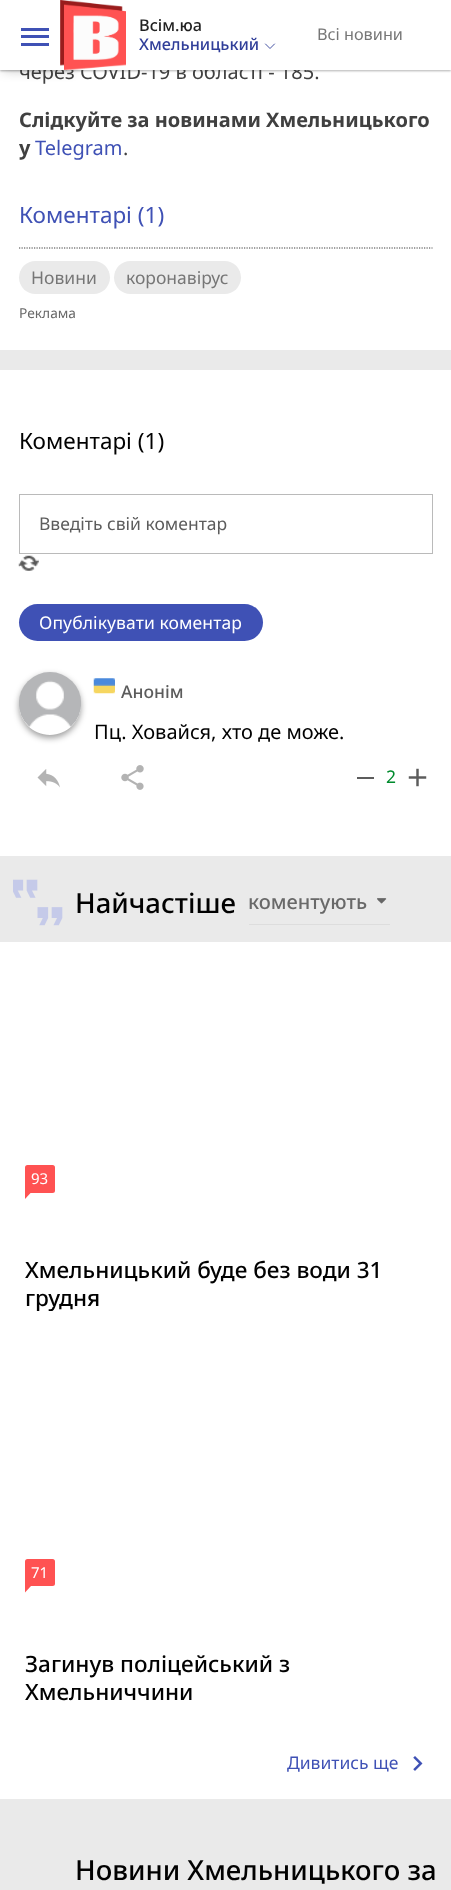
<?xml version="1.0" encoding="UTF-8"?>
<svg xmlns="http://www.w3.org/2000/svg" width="451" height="1890">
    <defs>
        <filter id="blur1" x="-50%" y="-200%" width="200%" height="500%"><feGaussianBlur stdDeviation="1"/></filter>
        <clipPath id="clip1"><path d="M 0 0 H 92 V 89 H 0 Z M 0 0 H 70 V 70 H 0 Z" clip-rule="evenodd"/></clipPath>
        <filter id="blur2" x="-50%" y="-200%" width="200%" height="500%"><feGaussianBlur stdDeviation="6"/></filter>
        <clipPath id="clip2"><path d="M 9 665 H 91 V 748 H 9 Z M 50 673 C 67 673 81 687 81 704 C 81 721 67 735 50 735 C 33 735 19 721 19 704 C 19 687 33 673 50 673 Z" clip-rule="evenodd"/></clipPath>
        <filter id="blur3" x="-50%" y="-200%" width="200%" height="500%"><feGaussianBlur stdDeviation="3"/></filter>
    </defs>
    <rect width="100%" height="100%" fill="#EAEAEA"/>
    <rect x="0" y="70" width="451" height="280" fill="#FFFFFF"/>
    <rect x="0" y="1" width="451" height="70" fill="#000000" fill-opacity="0.3" filter="url(#blur1)"/>
    <text x="19" y="79" font-family="Noto Sans" font-size="20" fill="#404040">через COVID-19 в області - 185.</text>
    <rect x="0" y="0" width="451" height="70" fill="#FFFFFF"/>
    <g clip-path="url(#clip1)">
        <rect x="3" y="0" width="70" height="70" fill="#000000" fill-opacity="0.25" filter="url(#blur2)"/>
    </g>
    <rect x="21" y="28" width="28" height="3" fill="#3F51B5"/>
    <rect x="21" y="35" width="28" height="3" fill="#3F51B5"/>
    <rect x="21" y="43" width="28" height="3" fill="#3F51B5"/>
    <image x="60" y="0" width="66" height="70" href="img_01.png"/>
    <text x="139" y="31" font-family="Noto Sans" font-size="16.25" font-weight="500" fill="#212121">Всім.юа</text>
    <text x="139" y="50" font-family="Noto Sans" font-size="16.25" font-weight="500" fill="#303E99">Хмельницький</text>
    <path d="M 274.5 44 L 270 48.5 L 265.5 44" fill="none" stroke="#303E99" stroke-width="0.9" stroke-linecap="round" stroke-linejoin="round"/>
    <text x="317" y="40" font-family="Noto Sans" font-size="16.25" fill="#767676">Всі новини</text>
    <text font-family="Noto Sans" font-size="20" font-weight="700" fill="#404040">
        <tspan x="19" y="127">Слідкуйте за новинами Хмельницького</tspan>
        <tspan x="19" y="155">у</tspan>
    </text>
    <text x="35" y="155" font-family="Noto Sans" font-size="20" fill="#3F51B5">Telegram</text>
    <text x="123" y="155" font-family="Noto Sans" font-size="20" fill="#404040">.</text>
    <text x="19" y="223" font-family="Noto Sans" font-size="22.5" fill="#3F51B5">Коментарі (1)</text>
    <path d="M 19 248 H 432.5" fill="none" stroke="#404040" stroke-width="1.2" stroke-dasharray="1.25 1.25"/>
    <rect x="19" y="261" width="91" height="33" rx="16.5" fill="#EAEAEA"/>
    <text x="31" y="284" font-family="Noto Sans" font-size="17.5" fill="#767676">Новини</text>
    <rect x="114" y="261" width="127" height="33" rx="16.5" fill="#EAEAEA"/>
    <text x="126" y="284" font-family="Noto Sans" font-size="17.5" fill="#767676">коронавірус</text>
    <text x="19" y="318" font-family="Noto Sans" font-size="13.75" fill="#696969">Реклама</text>
    <rect x="0" y="370" width="451" height="486" fill="#FFFFFF"/>
    <text x="19" y="449" font-family="Noto Sans" font-size="22.5" fill="#010101">Коментарі (1)</text>
    <rect x="19.5" y="494.5" width="413" height="59" fill="none" stroke="#BABABA"/>
    <text x="39" y="530" font-family="Noto Sans" font-size="17.5" fill="#5C5C5C">Введіть свій коментар</text>
    <image x="18" y="555" width="21" height="16" href="img_02.png"/>
    <rect x="19" y="604" width="244" height="37" rx="18.5" fill="#3F51B5"/>
    <text x="39" y="629" font-family="Noto Sans" font-size="17.5" letter-spacing="0.1" fill="#FFFFFF">Опублікувати коментар</text>
    <g clip-path="url(#clip2)">
        <rect x="19" y="675" width="62" height="63" rx="31" fill="#000000" fill-opacity="0.38" filter="url(#blur3)"/>
    </g>
    <image x="19" y="672" width="62" height="55" href="img_03.png"/>
    <image x="93" y="678" width="22" height="16" href="img_04.png"/>
    <text x="121" y="698" font-family="Noto Sans" font-size="17.5" font-weight="500" fill="#5C5C5C">Анонім</text>
    <text x="94" y="739" font-family="Noto Sans" font-size="20" fill="#010101">Пц. Ховайся, хто де може.</text>
    <image x="37" y="769" width="23" height="19" href="img_05.png"/>
    <image x="121" y="765" width="23" height="25" href="img_06.png"/>
    <rect x="357" y="777" width="17" height="2" fill="#5C5C5C"/>
    <text x="386" y="783" font-family="Noto Sans" font-size="17.5" fill="#008B2D">2</text>
    <image x="408" y="768" width="19" height="19" href="img_07.png"/>
    <image x="13" y="879" width="50" height="47" href="img_08.png"/>
    <text x="75" y="913" font-family="Noto Sans" font-size="27.5" font-weight="500" fill="#010101">Найчастіше</text>
    <image x="377" y="898" width="10" height="6" href="img_09.png"/>
    <rect x="249" y="924" width="141" height="1" fill="#DDDDDD"/>
    <text x="248" y="909" font-family="Noto Sans" font-size="20" font-weight="500" fill="#696969">коментують</text>
    <rect x="0" y="942" width="451" height="369" fill="#FFFFFF"/>
    <rect x="25" y="1165" width="30" height="28" rx="2.5" fill="#FF5252"/>
    <text x="31" y="1184" font-family="Noto Sans" font-size="15" fill="#FFFFFF">93</text>
    <path d="M 25 1199 V 1186 L 31 1192.5 Z" fill="#FF5252"/>
    <text font-family="Noto Sans" font-size="22.5" font-weight="500" fill="#010101">
        <tspan x="25" y="1278">Хмельницький буде без води 31</tspan>
        <tspan x="25" y="1306">грудня</tspan>
    </text>
    <rect x="0" y="1311" width="451" height="419" fill="#FFFFFF"/>
    <rect x="25" y="1559" width="30" height="27" rx="2.5" fill="#FF5252"/>
    <text x="31" y="1578" font-family="Noto Sans" font-size="15" fill="#FFFFFF">71</text>
    <path d="M 25 1592.5 V 1580 L 31 1586 Z" fill="#FF5252"/>
    <text font-family="Noto Sans" font-size="22.5" font-weight="500" fill="#010101">
        <tspan x="25" y="1672">Загинув поліцейський з</tspan>
        <tspan x="25" y="1700">Хмельниччини</tspan>
    </text>
    <rect x="0" y="1730" width="451" height="69" fill="#FFFFFF"/>
    <text x="287" y="1769" font-family="Noto Sans" font-size="17.5" fill="#3F51B5">Дивитись ще</text>
    <image x="413" y="1756" width="10" height="15" href="img_10.png"/>
    <text x="75" y="1880" font-family="Noto Sans" font-size="27.5" font-weight="500" fill="#010101">Новини Хмельницького за</text>
</svg>
